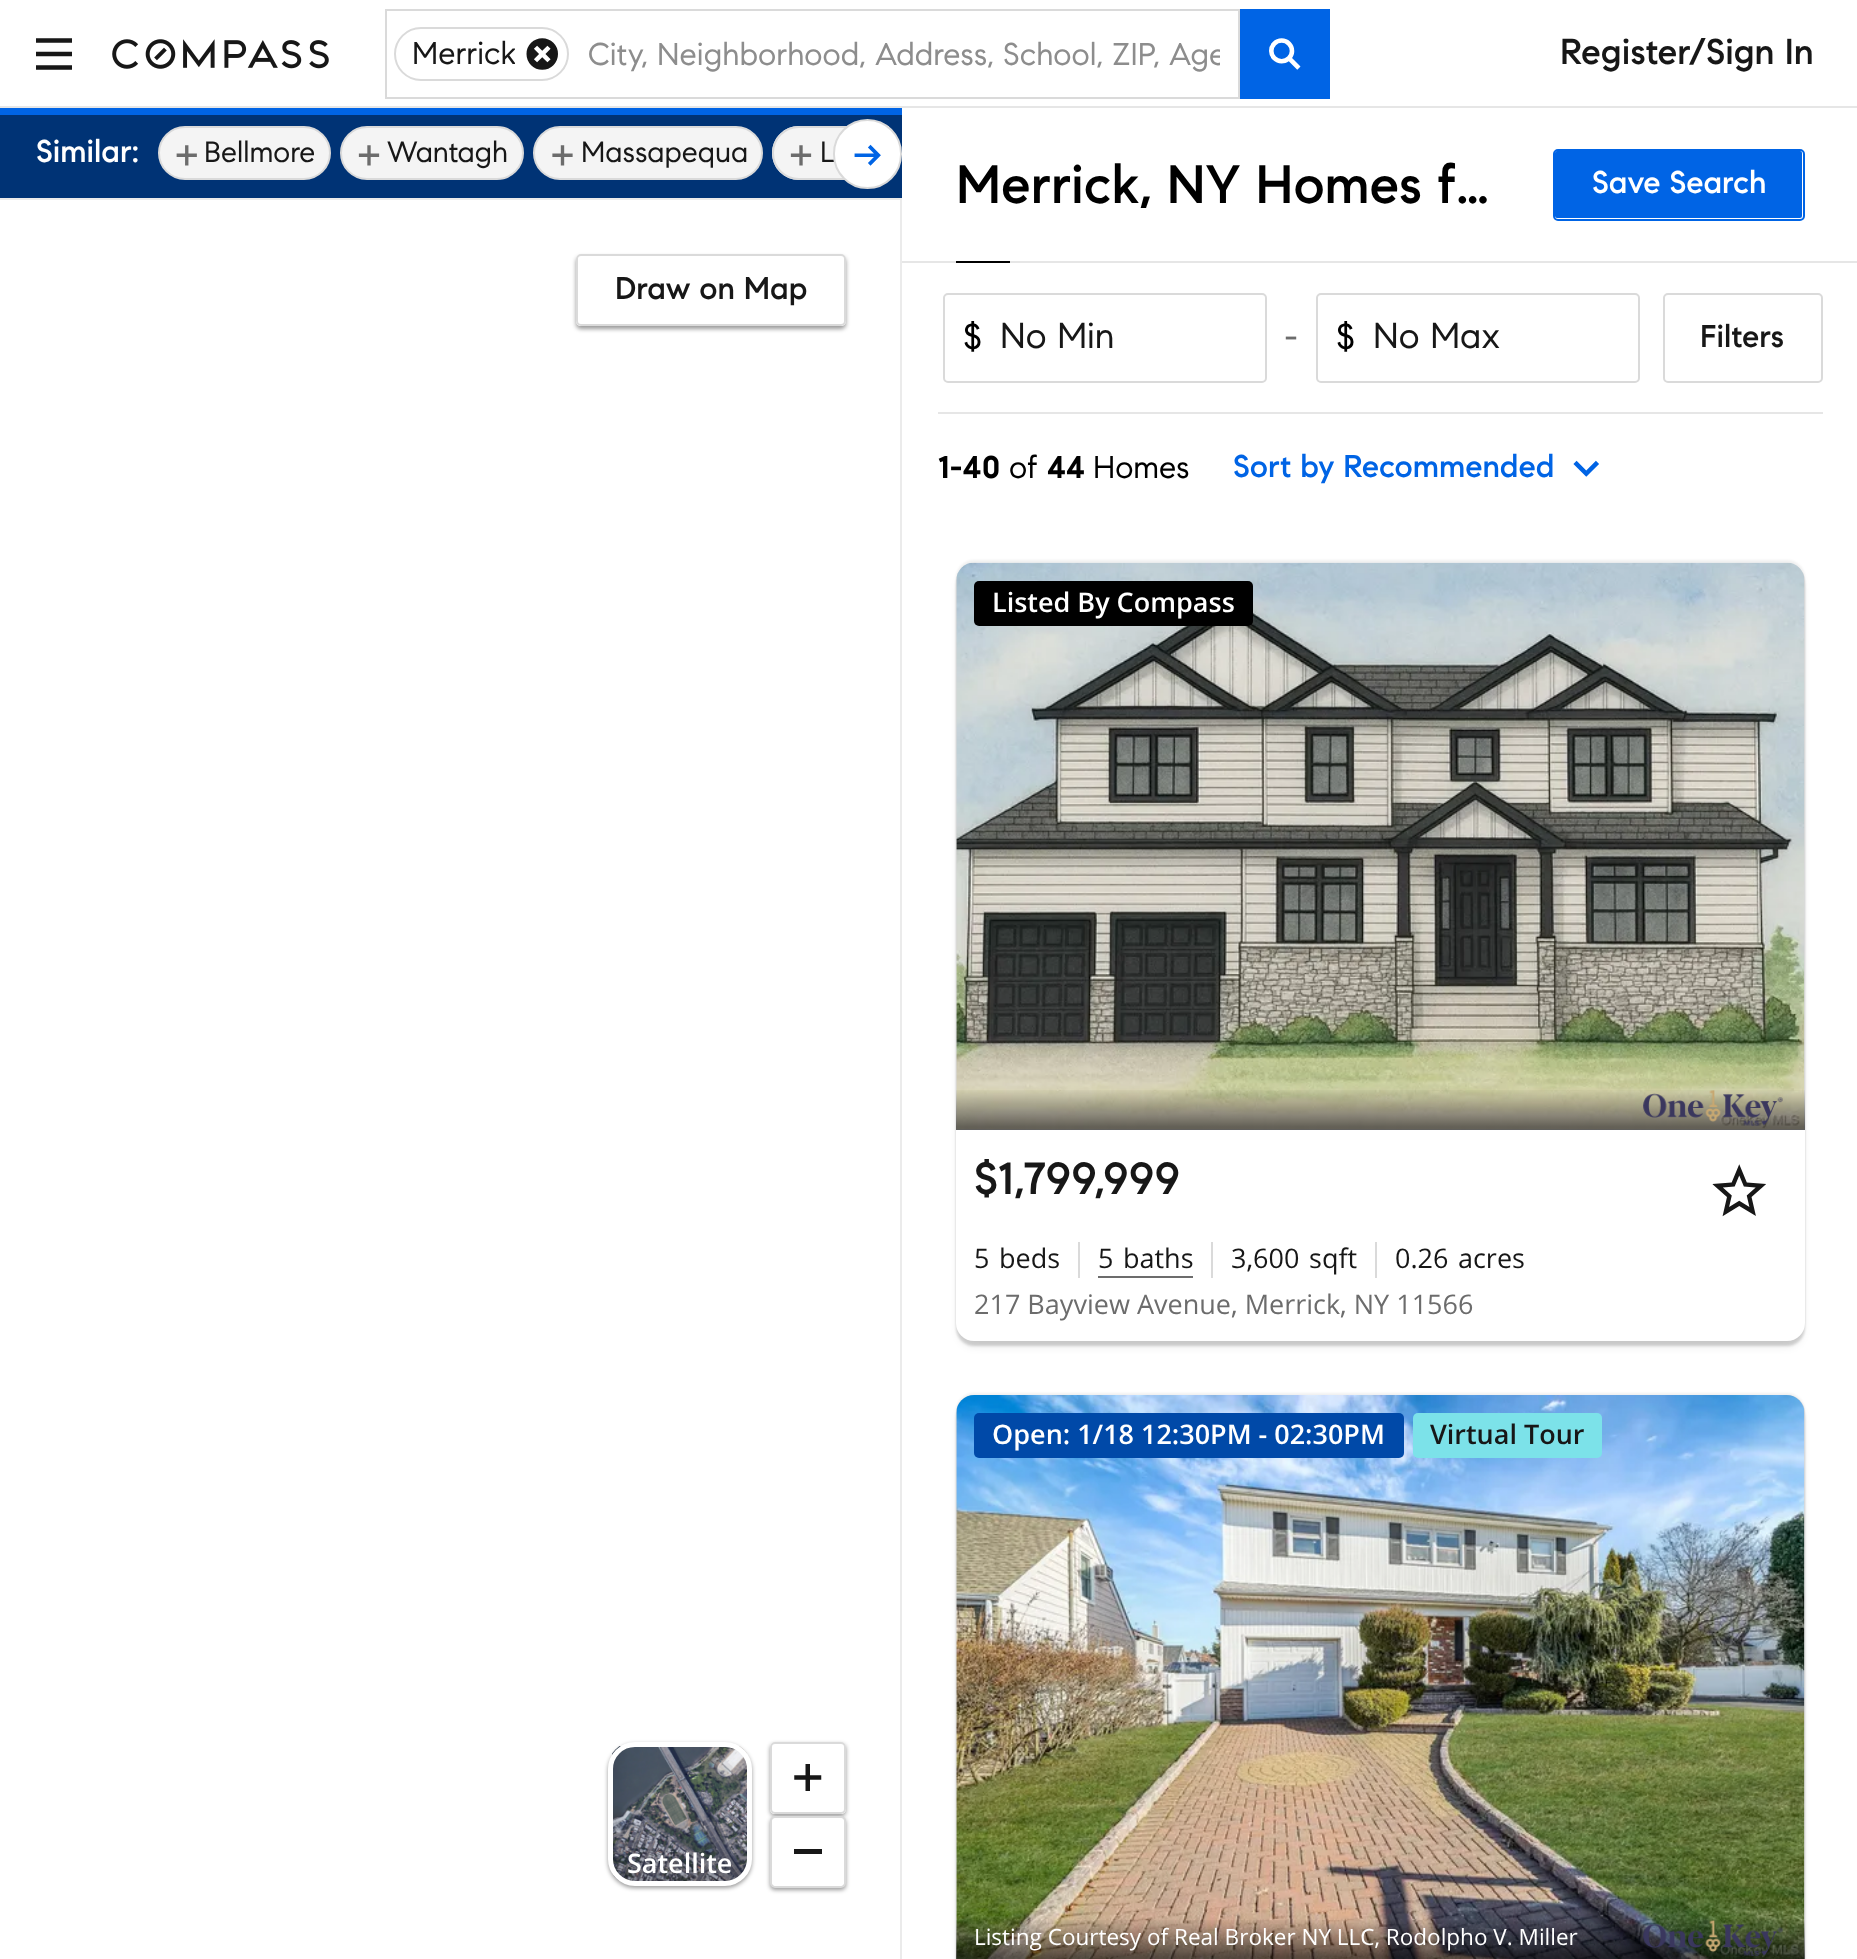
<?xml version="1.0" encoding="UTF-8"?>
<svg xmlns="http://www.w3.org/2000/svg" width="1857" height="1959">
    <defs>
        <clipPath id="clip1"><rect x="412" y="34" width="103" height="40"/></clipPath>
        <clipPath id="clip2"><rect x="587" y="36" width="633" height="38"/></clipPath>
        <clipPath id="clip3"><rect x="36" y="110" width="853" height="88"/></clipPath>
        <clipPath id="clip4"><path d="M 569 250 H 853 V 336 H 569 Z M 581 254 H 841 C 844 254 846 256 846 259 V 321 C 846 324 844 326 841 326 H 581 C 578 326 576 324 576 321 V 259 C 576 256 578 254 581 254 Z" clip-rule="evenodd"/></clipPath>
        <filter id="blur1" x="-50%" y="-200%" width="200%" height="500%"><feGaussianBlur stdDeviation="2"/></filter>
        <clipPath id="clip5"><path d="M 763 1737 H 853 V 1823 H 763 Z M 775 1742 H 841 C 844 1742 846 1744 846 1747 V 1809 C 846 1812 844 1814 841 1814 H 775 C 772 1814 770 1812 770 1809 V 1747 C 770 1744 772 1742 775 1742 Z" clip-rule="evenodd"/></clipPath>
        <filter id="blur2" x="-50%" y="-200%" width="200%" height="500%"><feGaussianBlur stdDeviation="1"/></filter>
        <filter id="blur3" x="-50%" y="-200%" width="200%" height="500%"><feGaussianBlur stdDeviation="4.5"/></filter>
        <linearGradient id="g1" gradientUnits="userSpaceOnUse" x1="1380" y1="1085" x2="1380" y2="1130"><stop offset="0.07" stop-color="#000000" stop-opacity="0"/><stop offset="0.93" stop-color="#000000" stop-opacity="0.57"/></linearGradient>
        <linearGradient id="g2" gradientUnits="userSpaceOnUse" x1="1380" y1="1915" x2="1380" y2="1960"><stop offset="0.07" stop-color="#000000" stop-opacity="0"/><stop offset="0.93" stop-color="#000000" stop-opacity="0.57"/></linearGradient>
    </defs>
    <rect width="100%" height="100%" fill="#FFFFFF"/>
    <rect x="0" y="106" width="1857" height="2" fill="#E6E6E6"/>
    <image x="36" y="38" width="36" height="32" href="img_01.png"/>
    <image x="112" y="39" width="217" height="30" href="img_02.png"/>
    <rect x="386" y="10" width="853" height="88" fill="none" stroke="#DADADA" stroke-width="2"/>
    <rect x="395" y="28" width="173" height="52" rx="26" fill="none" stroke="#DADADA" stroke-width="2"/>
    <g clip-path="url(#clip1)">
        <text x="412" y="64" font-family="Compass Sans" font-size="31.5" fill="#171717">Merrick</text>
    </g>
    <image x="526" y="38" width="32" height="32" href="img_03.png"/>
    <g clip-path="url(#clip2)">
        <text x="588" y="65" font-family="Compass Sans" font-size="31.5" fill="#8D8D8D">City, Neighborhood, Address, School, ZIP, Age</text>
    </g>
    <rect x="1240" y="9" width="90" height="90" fill="#0064E5"/>
    <image x="1269" y="38" width="32" height="32" href="img_04.png"/>
    <text x="1560" y="64" font-family="Compass Sans" font-size="36" font-weight="500" fill="#171717">Register/Sign In</text>
    <rect x="0" y="108" width="902" height="7" fill="#0064E5"/>
    <rect x="0" y="115" width="902" height="83" fill="#003375"/>
    <text x="36" y="162" font-family="Compass Sans" font-size="31.5" font-weight="500" fill="#FFFFFF">Similar:</text>
    <rect x="159" y="127" width="171" height="52" rx="26" fill="#F4F4F4" stroke="#DADADA" stroke-width="2"/>
    <image x="176" y="145" width="21" height="21" href="img_05.png"/>
    <text x="204" y="162" font-family="Compass Sans" font-size="29.25" fill="#171717">Bellmore</text>
    <rect x="341" y="127" width="182" height="52" rx="26" fill="#F4F4F4" stroke="#DADADA" stroke-width="2"/>
    <image x="358" y="145" width="22" height="21" href="img_06.png"/>
    <text x="387" y="162" font-family="Compass Sans" font-size="29.25" fill="#171717">Wantagh</text>
    <rect x="534" y="127" width="228" height="52" rx="26" fill="#F4F4F4" stroke="#DADADA" stroke-width="2"/>
    <image x="552" y="145" width="21" height="21" href="img_07.png"/>
    <text x="581" y="162" font-family="Compass Sans" font-size="29.25" fill="#171717">Massapequa</text>
    <path d="M 799 126 H 889 V 180 H 799 C 784 180 772 168 772 153 C 772 138 784 126 799 126 Z" fill="#F4F4F4"/>
    <g clip-path="url(#clip3)">
        <rect x="773" y="127" width="189" height="52" rx="26" fill="none" stroke="#DADADA" stroke-width="2"/>
    </g>
    <image x="790" y="145" width="22" height="21" href="img_06.png"/>
    <text x="820" y="162" font-family="Compass Sans" font-size="29.25" fill="#171717">L</text>
    <rect x="834" y="120" width="67" height="68" rx="33.5" fill="#FFFFFF" stroke="#DADADA" stroke-width="2"/>
    <image x="854" y="144" width="27" height="22" href="img_08.png"/>
    <path d="M 0 198 H 902 L 900 200 H 0 Z" fill="#EBEBEB"/>
    <path d="M 902 198 V 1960 H 900 V 200 Z" fill="#000000" fill-opacity="0.08"/>
    <g clip-path="url(#clip4)">
        <rect x="576" y="257" width="270" height="72" rx="5" fill="#000000" fill-opacity="0.4" filter="url(#blur1)"/>
    </g>
    <rect x="577" y="255" width="268" height="70" rx="4" fill="none" stroke="#DADADA" stroke-width="2"/>
    <text x="615" y="299" font-family="Compass Sans" font-size="31.5" font-weight="500" fill="#171717">Draw on Map</text>
    <rect x="608" y="1744" width="144" height="144" rx="27" fill="#000000" fill-opacity="0.4" filter="url(#blur1)"/>
    <image x="612" y="1746" width="135" height="135" href="img_09.png"/>
    <rect x="610.5" y="1744.5" width="139" height="139" rx="24.5" fill="none" stroke="#FFFFFF" stroke-width="5"/>
    <text x="627" y="1873" font-family="Open Sans" font-size="27" font-weight="600" fill="#FFFFFF">Satellite</text>
    <g clip-path="url(#clip5)">
        <rect x="770" y="1744" width="76" height="72" rx="5" fill="#000000" fill-opacity="0.4" filter="url(#blur1)"/>
    </g>
    <rect x="771" y="1743" width="74" height="70" rx="4" fill="none" stroke="#DADADA" stroke-width="2"/>
    <image x="794" y="1764" width="28" height="27" href="img_10.png"/>
    <rect x="770" y="1818" width="76" height="72" rx="5" fill="#000000" fill-opacity="0.4" filter="url(#blur1)"/>
    <rect x="772" y="1818" width="72" height="68" rx="2" fill="#FFFFFF"/>
    <rect x="771" y="1817" width="74" height="70" rx="4" fill="none" stroke="#DADADA" stroke-width="2"/>
    <rect x="794" y="1849" width="28" height="5" fill="#171717"/>
    <rect x="902" y="261" width="955" height="2" fill="#E6E6E6"/>
    <text x="956" y="203" font-family="Compass Sans" font-size="54" font-weight="500" fill="#000000">Merrick, NY Homes f…</text>
    <rect x="1555" y="151" width="247" height="67" rx="2" fill="#0064E5"/>
    <rect x="1554" y="150" width="250" height="70" rx="4" fill="none" stroke="#0064E5" stroke-width="2"/>
    <text x="1592" y="193" font-family="Compass Sans" font-size="31.5" font-weight="500" fill="#FFFFFF">Save Search</text>
    <rect x="956" y="261" width="54" height="2" fill="#000000"/>
    <rect x="944" y="294" width="322" height="88" rx="4" fill="none" stroke="#DADADA" stroke-width="2"/>
    <text x="963" y="349" font-family="Compass Sans" font-size="36" fill="#000000">$</text>
    <text x="1000" y="348" font-family="Compass Sans" font-size="36" fill="#171717">No Min</text>
    <text x="1284" y="349" font-family="Compass Sans" font-size="36" fill="#6C6C6C">-</text>
    <rect x="1317" y="294" width="322" height="88" rx="4" fill="none" stroke="#DADADA" stroke-width="2"/>
    <text x="1336" y="349" font-family="Compass Sans" font-size="36" fill="#000000">$</text>
    <text x="1373" y="348" font-family="Compass Sans" font-size="36" fill="#171717">No Max</text>
    <rect x="1664" y="294" width="158" height="88" rx="4" fill="none" stroke="#DADADA" stroke-width="2"/>
    <text x="1700" y="347" font-family="Compass Sans" font-size="31.5" font-weight="500" fill="#171717">Filters</text>
    <rect x="938" y="412" width="885" height="2" fill="#E6E6E6"/>
    <text x="938" y="478" font-family="Compass Sans" font-size="31.5" font-weight="700" fill="#000000">1-40</text>
    <text x="1009" y="478" font-family="Compass Sans" font-size="31.5" fill="#000000">of</text>
    <text x="1047" y="478" font-family="Compass Sans" font-size="31.5" font-weight="700" fill="#000000">44</text>
    <text x="1093" y="478" font-family="Compass Sans" font-size="31.5" fill="#000000">Homes</text>
    <text x="1233" y="477" font-family="Compass Sans" font-size="31.5" font-weight="500" fill="#0064E5">Sort by Recommended</text>
    <image x="1573" y="460" width="26" height="17" href="img_11.png"/>
    <rect x="956" y="560" width="849" height="779" rx="18" fill="#000000" fill-opacity="0.06" filter="url(#blur2)"/>
    <rect x="956" y="567" width="849" height="779" rx="18" fill="#000000" fill-opacity="0.14" filter="url(#blur2)"/>
    <rect x="959" y="572" width="843" height="774" rx="16" fill="#000000" fill-opacity="0.1" filter="url(#blur3)"/>
    <rect x="956" y="563" width="849" height="778" rx="18" fill="#FFFFFF"/>
    <path d="M 974 563 H 1787 C 1797 563 1805 571 1805 581 V 1130 H 956 V 581 C 956 571 964 563 974 563 Z" fill="#DADADA"/>
    <image x="956" y="562" width="849" height="568" href="img_12.png"/>
    <rect x="974" y="581" width="279" height="45" rx="5" fill="#000000"/>
    <text x="992" y="612" font-family="Open Sans" font-size="27" font-weight="600" fill="#FFFFFF">Listed By Compass</text>
    <rect x="956" y="1090" width="849" height="40" fill="url(#g1)"/>
    <image x="1643" y="1090" width="140" height="36" href="img_13.png"/>
    <text x="974" y="1194" font-family="Compass Sans" font-size="45" font-weight="500" fill="#171717">$1,799,999</text>
    <image x="1712" y="1164" width="54" height="53" href="img_14.png"/>
    <text x="974" y="1268" font-family="Open Sans" font-size="27" fill="#171717">5</text>
    <text x="999" y="1268" font-family="Open Sans" font-size="27" fill="#171717">beds</text>
    <rect x="1078" y="1242" width="2" height="36" fill="#DADADA"/>
    <rect x="1098" y="1276" width="95" height="2" fill="#6C6C6C"/>
    <text x="1098" y="1268" font-family="Open Sans" font-size="27" fill="#171717">5</text>
    <text x="1123" y="1268" font-family="Open Sans" font-size="27" fill="#171717">baths</text>
    <rect x="1211" y="1242" width="2" height="36" fill="#DADADA"/>
    <text x="1231" y="1268" font-family="Open Sans" font-size="27" fill="#171717">3,600</text>
    <text x="1309" y="1268" font-family="Open Sans" font-size="27" fill="#171717">sqft</text>
    <rect x="1375" y="1242" width="2" height="36" fill="#DADADA"/>
    <text x="1395" y="1268" font-family="Open Sans" font-size="27" fill="#171717">0.26</text>
    <text x="1458" y="1268" font-family="Open Sans" font-size="27" fill="#171717">acres</text>
    <text x="974" y="1314" font-family="Open Sans" font-size="27" fill="#6C6C6C">217 Bayview Avenue, Merrick, NY 11566</text>
    <rect x="956" y="1393" width="849" height="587" rx="18" fill="#000000" fill-opacity="0.06" filter="url(#blur2)"/>
    <rect x="956" y="1400" width="849" height="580" rx="18" fill="#000000" fill-opacity="0.14" filter="url(#blur2)"/>
    <rect x="959" y="1404" width="843" height="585" rx="16" fill="#000000" fill-opacity="0.1" filter="url(#blur3)"/>
    <path d="M 974 1395 H 1787 C 1797 1395 1805 1403 1805 1413 V 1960 H 956 V 1413 C 956 1403 964 1395 974 1395 Z" fill="#DADADA"/>
    <image x="956" y="1395" width="849" height="564" href="img_15.png"/>
    <rect x="974" y="1413" width="430" height="45" rx="5" fill="#0049A8"/>
    <text x="992" y="1444" font-family="Open Sans" font-size="27" font-weight="600" fill="#FFFFFF">Open: 1/18 12:30PM - 02:30PM</text>
    <rect x="1413" y="1413" width="189" height="45" rx="5" fill="#7CE2E9"/>
    <text x="1430" y="1444" font-family="Open Sans" font-size="27" font-weight="600" fill="#171717">Virtual Tour</text>
    <rect x="956" y="1920" width="849" height="39" fill="url(#g2)"/>
    <text x="974" y="1945" font-family="Open Sans" font-size="22.5" fill="#FFFFFF">Listing Courtesy of Real Broker NY LLC, Rodolpho V. Miller</text>
    <image x="1643" y="1920" width="140" height="36" href="img_16.png"/>
</svg>
